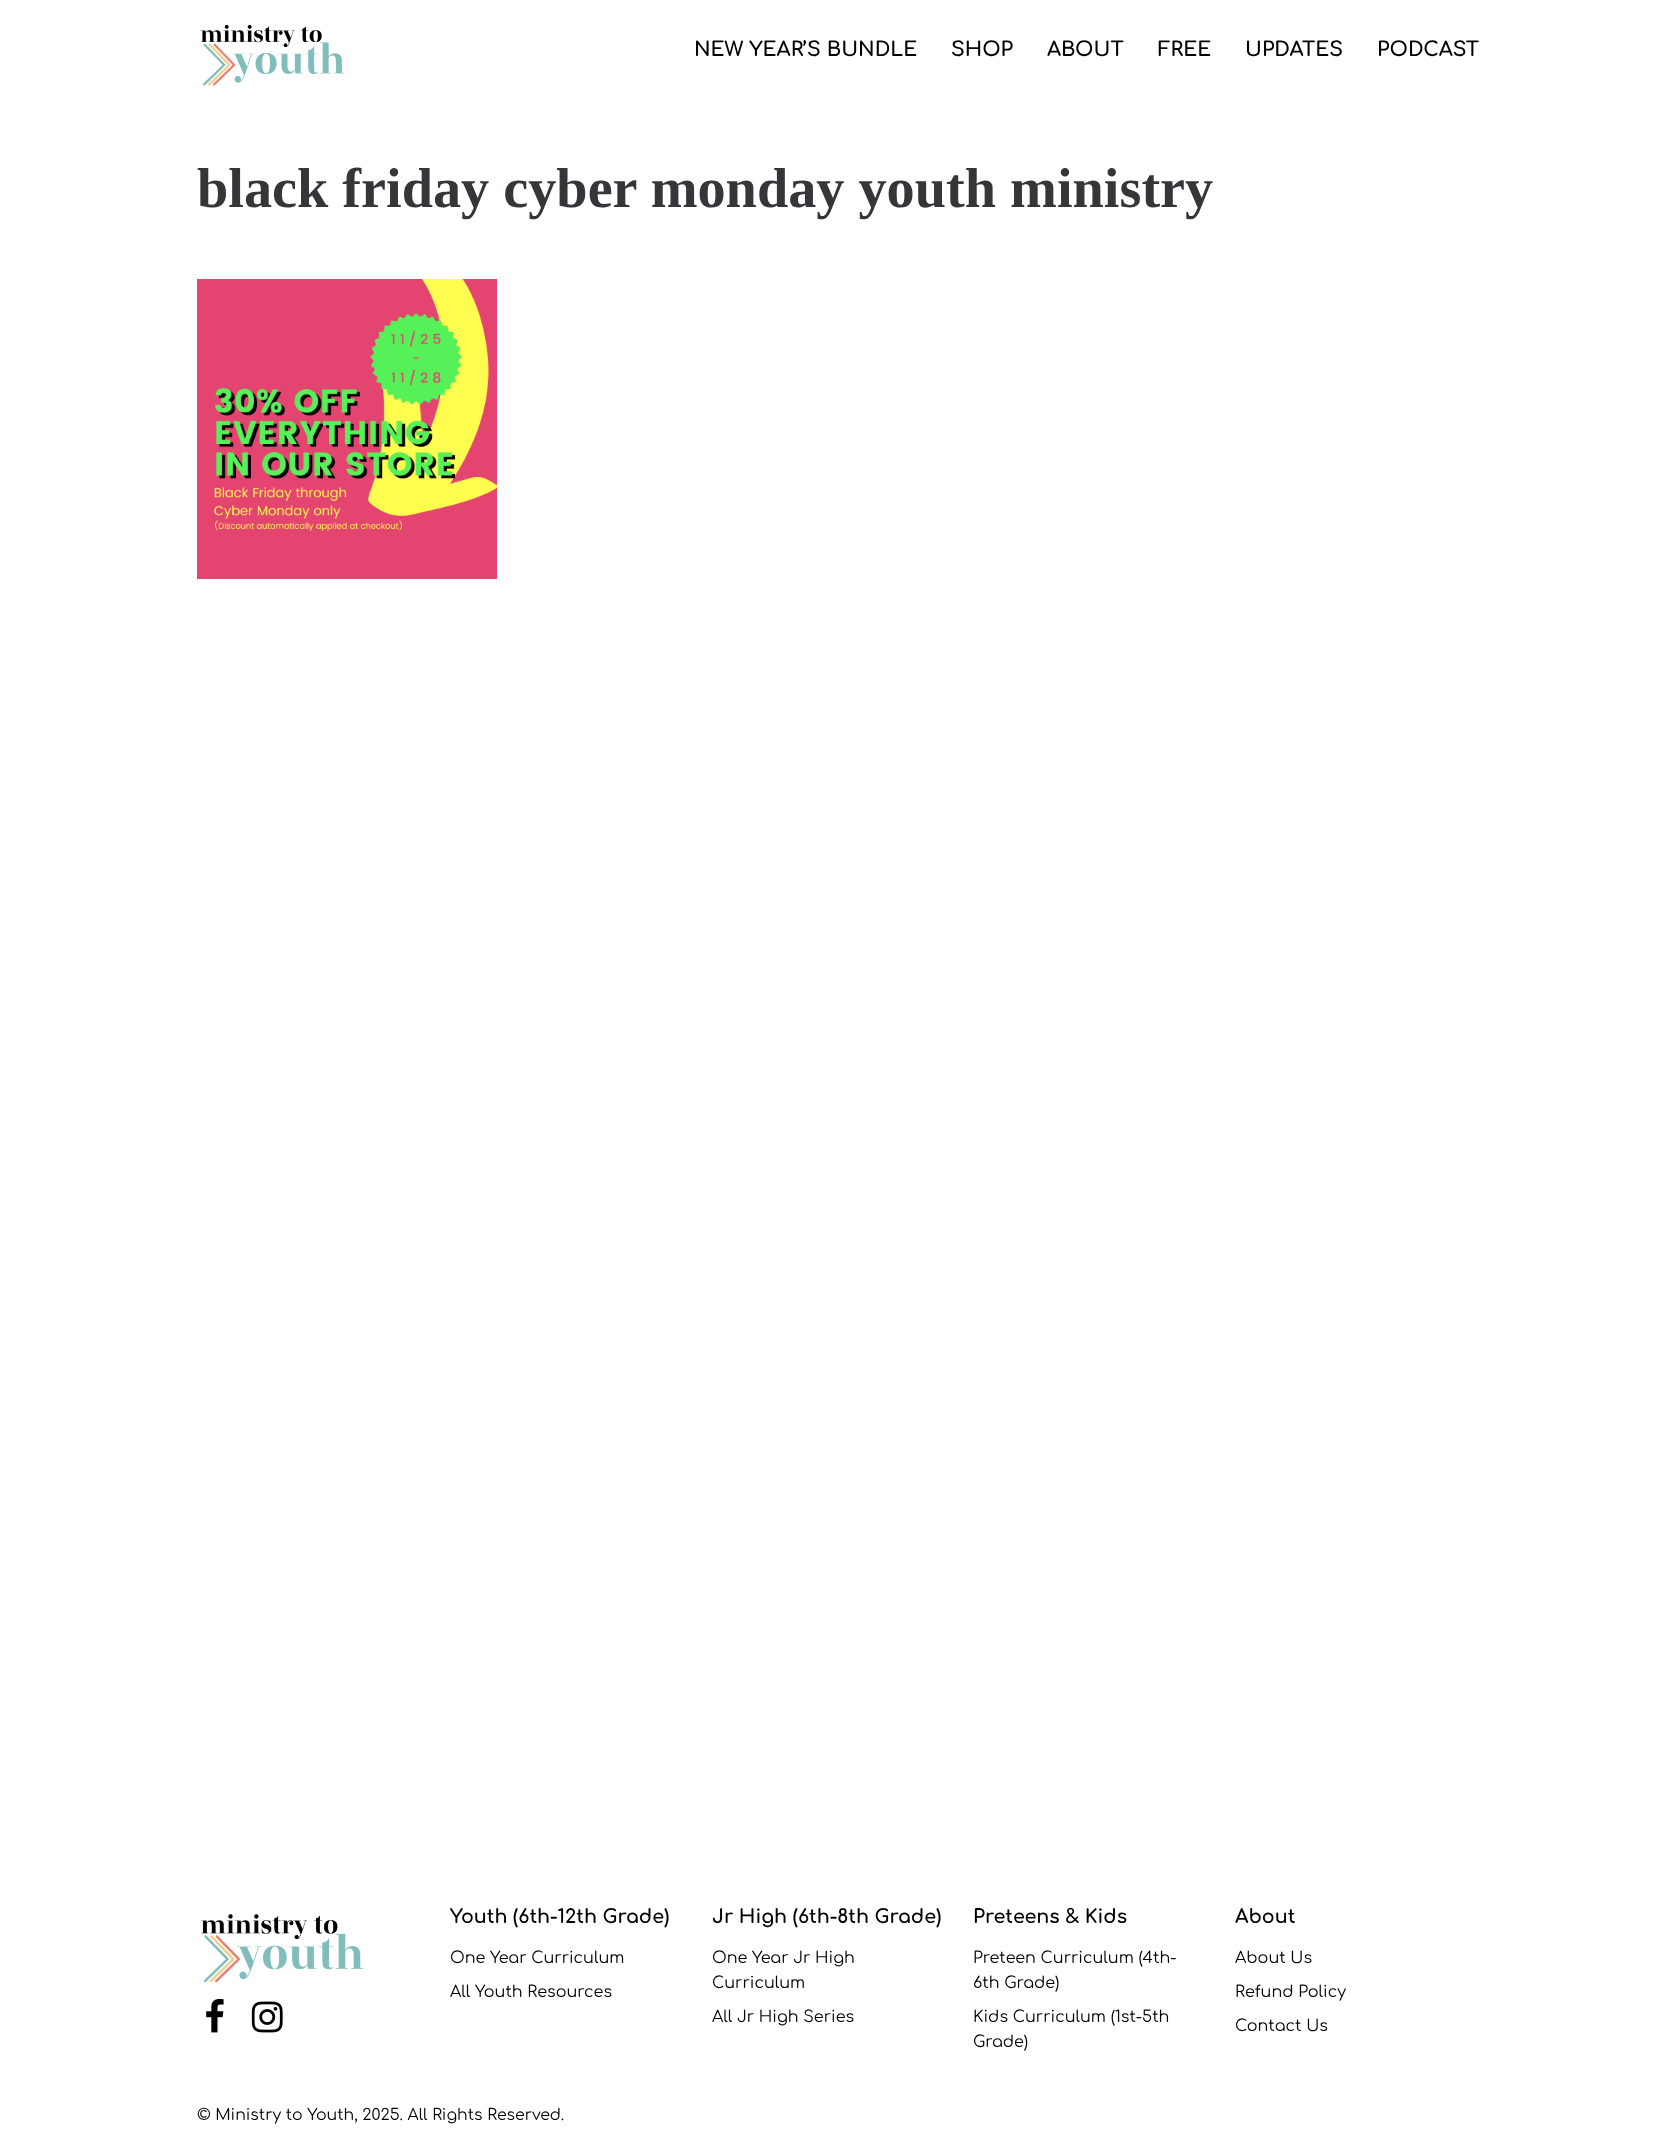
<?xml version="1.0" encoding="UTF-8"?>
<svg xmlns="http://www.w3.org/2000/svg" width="1676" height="2147">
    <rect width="100%" height="100%" fill="#FFFFFF"/>
    <image x="200" y="24" width="145" height="62" href="img_01.png"/>
    <text x="694" y="56" font-family="Comfortaa" font-size="20" font-weight="700" fill="#000000">NEW YEAR’S BUNDLE</text>
    <text x="951" y="56" font-family="Comfortaa" font-size="20" font-weight="700" fill="#000000">SHOP</text>
    <text x="1047" y="56" font-family="Comfortaa" font-size="20" font-weight="700" fill="#000000">ABOUT</text>
    <text x="1158" y="56" font-family="Comfortaa" font-size="20" font-weight="700" fill="#000000">FREE</text>
    <text x="1245" y="56" font-family="Comfortaa" font-size="20" font-weight="700" fill="#000000">UPDATES</text>
    <text x="1377" y="56" font-family="Comfortaa" font-size="20" font-weight="700" fill="#000000">PODCAST</text>
    <text x="197" y="207" font-family="Liberation Serif" font-size="56.25" font-weight="700" fill="#343639">black friday cyber monday youth ministry</text>
    <image x="197" y="279" width="300" height="300" href="img_02.png"/>
    <image x="201" y="1914" width="163" height="69" href="img_03.png"/>
    <image x="206" y="1999" width="18" height="34" href="img_04.png"/>
    <image x="251" y="2001" width="32" height="32" href="img_05.png"/>
    <text x="450" y="1923" font-family="Comfortaa" font-size="19.1" font-weight="700" fill="#000000">Youth (6th-12th Grade)</text>
    <text x="450" y="1963" font-family="Comfortaa" font-size="16" fill="#000000">One Year Curriculum</text>
    <text x="450" y="1997" font-family="Comfortaa" font-size="16" fill="#000000">All Youth Resources</text>
    <text x="712" y="1923" font-family="Comfortaa" font-size="19.1" font-weight="700" fill="#000000">Jr High (6th-8th Grade)</text>
    <text font-family="Comfortaa" font-size="16" fill="#000000">
        <tspan x="712" y="1963">One Year Jr High</tspan>
        <tspan x="712" y="1988">Curriculum</tspan>
    </text>
    <text x="712" y="2022" font-family="Comfortaa" font-size="16" fill="#000000">All Jr High Series</text>
    <text x="973" y="1923" font-family="Comfortaa" font-size="19.1" font-weight="700" fill="#000000">Preteens &amp; Kids</text>
    <text font-family="Comfortaa" font-size="16" fill="#000000">
        <tspan x="973" y="1963">Preteen Curriculum (4th-</tspan>
        <tspan x="973" y="1988">6th Grade)</tspan>
    </text>
    <text font-family="Comfortaa" font-size="16" fill="#000000">
        <tspan x="973" y="2022">Kids Curriculum (1st-5th</tspan>
        <tspan x="973" y="2047">Grade)</tspan>
    </text>
    <text x="1235" y="1923" font-family="Comfortaa" font-size="19.1" font-weight="700" fill="#000000">About</text>
    <text x="1235" y="1963" font-family="Comfortaa" font-size="16" fill="#000000">About Us</text>
    <text x="1235" y="1997" font-family="Comfortaa" font-size="16" fill="#000000">Refund Policy</text>
    <text x="1235" y="2031" font-family="Comfortaa" font-size="16" fill="#000000">Contact Us</text>
    <text x="197" y="2120" font-family="Comfortaa" font-size="15.75" fill="#000000">© Ministry to Youth, 2025. All Rights Reserved.</text>
</svg>
